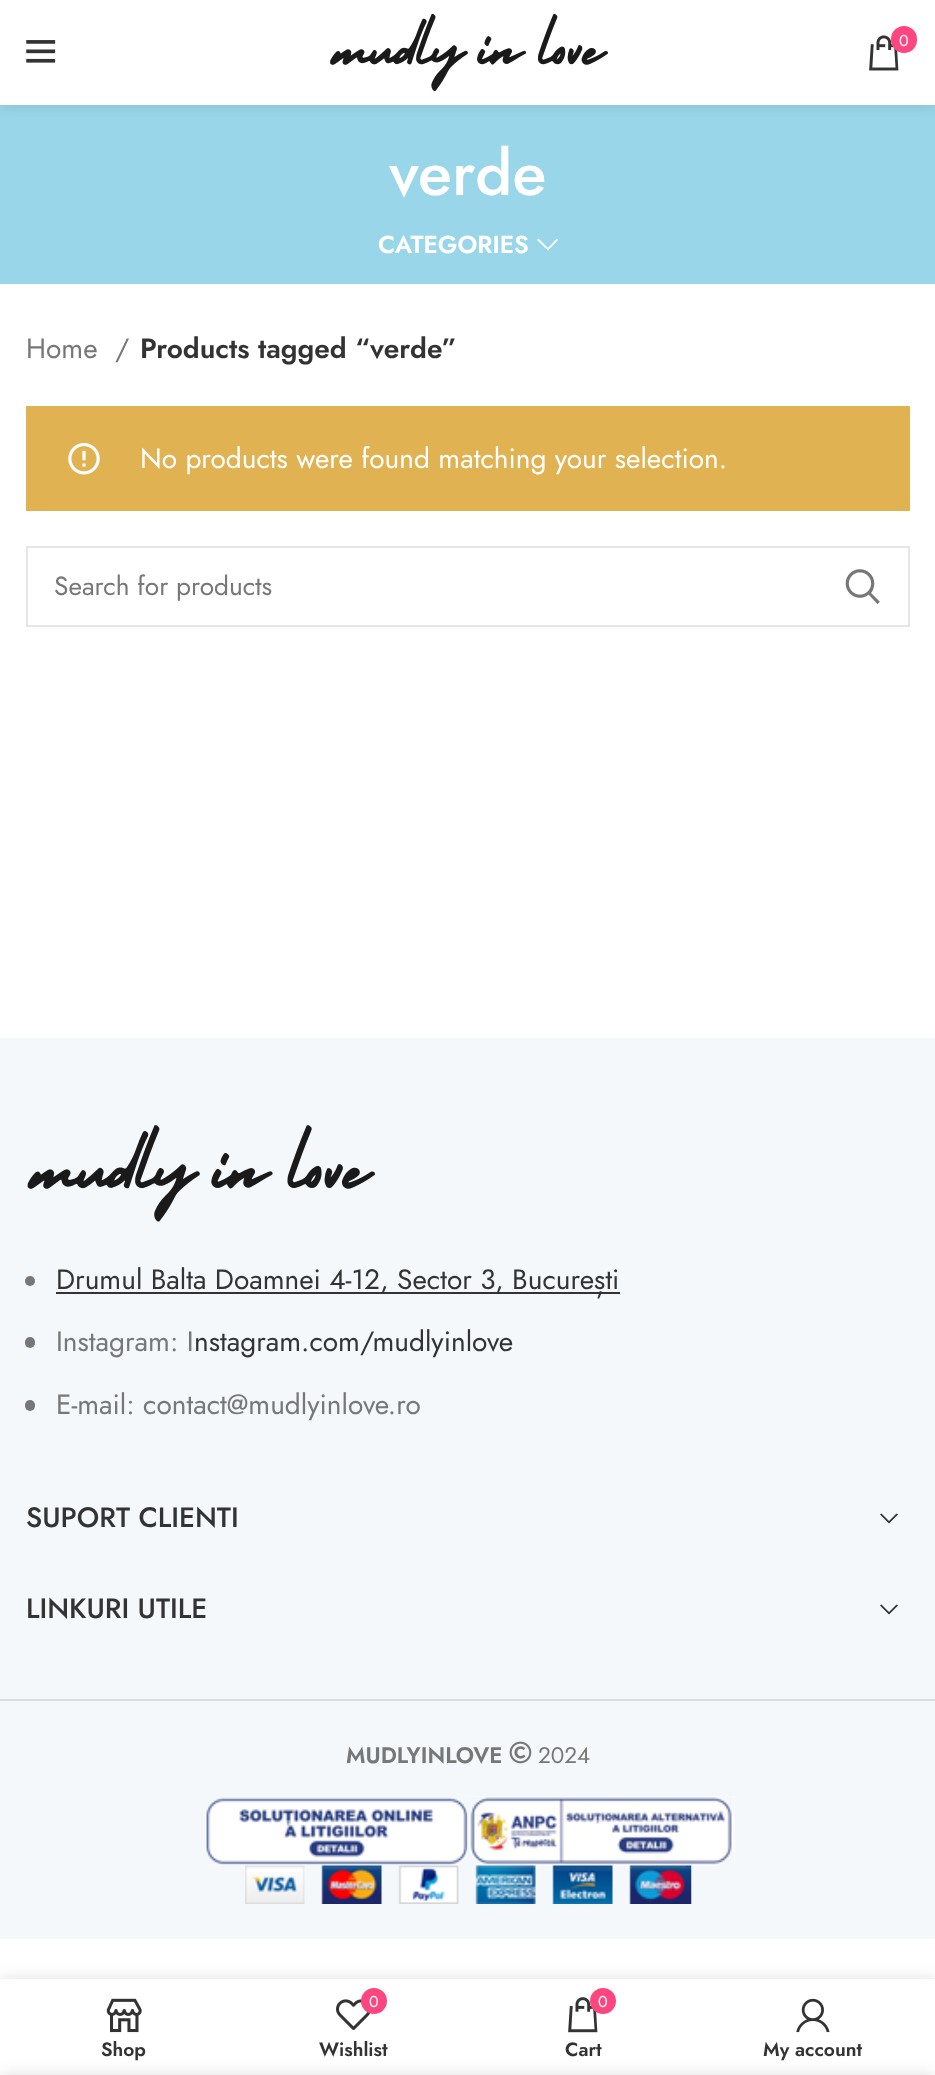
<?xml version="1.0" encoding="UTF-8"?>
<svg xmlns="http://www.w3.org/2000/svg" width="935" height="2075">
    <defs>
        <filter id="blur1" x="-50%" y="-200%" width="200%" height="500%"><feGaussianBlur stdDeviation="7"/></filter>
        <filter id="blur2" x="-50%" y="-200%" width="200%" height="500%"><feGaussianBlur stdDeviation="8"/></filter>
    </defs>
    <rect width="100%" height="100%" fill="#FFFFFF"/>
    <rect x="0" y="105" width="935" height="179" fill="#99D6E9"/>
    <rect x="0" y="2" width="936" height="105" fill="#000000" fill-opacity="0.1" filter="url(#blur1)"/>
    <rect x="0" y="0" width="935" height="105" fill="#FFFFFF"/>
    <image x="26" y="40" width="30" height="23" href="img_01.png"/>
    <image x="330" y="14" width="278" height="77" href="img_02.png"/>
    <image x="869" y="35" width="30" height="36" href="img_03.png"/>
    <rect x="891" y="26" width="26" height="27" rx="13" fill="#FD4680"/>
    <text x="899" y="46" font-family="Jost" font-size="16" fill="#FFFFFF">0</text>
    <text x="389" y="195" font-family="Jost" font-size="63" font-weight="500" fill="#FFFFFF">verde</text>
    <text x="378" y="253" font-family="Jost" font-size="24.5" font-weight="600" fill="#FFFFFF">CATEGORIES</text>
    <path d="M 557 238.5 L 558 240 L 548 250.5 L 537 240 L 538.5 238.5 L 548 248 Z" fill="#FFFFFF"/>
    <text x="26" y="358" font-family="Jost" font-size="28" fill="#777777">Home</text>
    <text x="115" y="358" font-family="Jost" font-size="28" fill="#777777">/</text>
    <text x="140" y="358" font-family="Jost" font-size="28" font-weight="600" fill="#333333">Products tagged “verde”</text>
    <rect x="26" y="406" width="884" height="105" fill="#E0B252"/>
    <image x="68" y="443" width="32" height="32" href="img_04.png"/>
    <text x="140" y="468" font-family="Jost" font-size="28" fill="#FFFFFF">No products were found matching your selection.</text>
    <rect x="27" y="547" width="882" height="79" fill="none" stroke="#E6E6E6" stroke-width="2"/>
    <text x="54" y="595" font-family="Jost" font-size="26.25" fill="#777777">Search for products</text>
    <image x="845" y="569" width="35" height="36" href="img_05.png"/>
    <rect x="0" y="1038" width="935" height="901" fill="#F4F8FB"/>
    <image x="27" y="1125" width="348" height="97" href="img_06.png"/>
    <circle cx="30" cy="1281" r="5" fill="#777777"/>
    <rect x="56" y="1292" width="564" height="2" fill="#333333"/>
    <text x="56" y="1289" font-family="Jost" font-size="28" fill="#333333">Drumul Balta Doamnei 4-12, Sector 3, București</text>
    <rect x="25" y="1337" width="10" height="11" rx="5" fill="#777777"/>
    <text x="56" y="1351" font-family="Jost" font-size="28" fill="#777777">Instagram: I</text>
    <text x="194" y="1351" font-family="Jost" font-size="28" fill="#333333">nstagram.com/mudlyinlove</text>
    <rect x="25" y="1400" width="10" height="11" rx="5" fill="#777777"/>
    <text x="56" y="1414" font-family="Jost" font-size="28" fill="#777777">E-mail: contact@mudlyinlove.ro</text>
    <text x="26" y="1527" font-family="Jost" font-size="28" font-weight="500" fill="#333333">SUPORT CLIENTI</text>
    <path d="M 896.5 1513.5 L 898 1514.5 L 889 1523.5 L 880 1514.5 L 881.5 1513.5 L 889 1521 Z" fill="#333333"/>
    <text x="26" y="1618" font-family="Jost" font-size="28" font-weight="500" fill="#333333">LINKURI UTILE</text>
    <path d="M 896.5 1604.5 L 898 1605.5 L 889 1614.5 L 880 1605.5 L 881.5 1604.5 L 889 1612 Z" fill="#333333"/>
    <rect x="0" y="1699" width="935" height="2" fill="#DADEE0"/>
    <text x="346" y="1763" font-family="Jost" font-size="22.5" font-weight="600" fill="#777777">MUDLYINLOVE</text>
    <image x="509" y="1741" width="23" height="23" href="img_07.png"/>
    <text x="538" y="1763" font-family="Jost" font-size="22.5" fill="#777777">2024</text>
    <image x="205" y="1797" width="263" height="69" href="img_08.png"/>
    <image x="467" y="1796" width="268" height="70" href="img_09.png"/>
    <image x="245" y="1865" width="447" height="39" href="img_10.png"/>
    <rect x="0" y="1979" width="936" height="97" fill="#000000" fill-opacity="0.12" filter="url(#blur2)"/>
    <rect x="0" y="1979" width="935" height="96" fill="#FFFFFF"/>
    <image x="106" y="1998" width="36" height="35" href="img_11.png"/>
    <text x="101" y="2056" font-family="Jost" font-size="19.25" font-weight="600" fill="#333333">Shop</text>
    <image x="336" y="1999" width="34" height="31" href="img_12.png"/>
    <circle cx="374" cy="2001" r="13" fill="#FD4680"/>
    <text x="369" y="2007" font-family="Jost" font-size="16" fill="#FFFFFF">0</text>
    <text x="319" y="2056" font-family="Jost" font-size="19.25" font-weight="600" fill="#333333">Wishlist</text>
    <image x="568" y="1997" width="30" height="36" href="img_13.png"/>
    <circle cx="603" cy="2001" r="13" fill="#FD4680"/>
    <text x="598" y="2007" font-family="Jost" font-size="16" fill="#FFFFFF">0</text>
    <text x="565" y="2056" font-family="Jost" font-size="19.25" font-weight="600" fill="#333333">Cart</text>
    <image x="796" y="1998" width="34" height="35" href="img_14.png"/>
    <text x="763" y="2056" font-family="Jost" font-size="19.25" font-weight="600" fill="#333333">My account</text>
    <rect x="0" y="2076" width="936" height="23" fill="#000000" fill-opacity="0.14" filter="url(#blur2)"/>
</svg>
